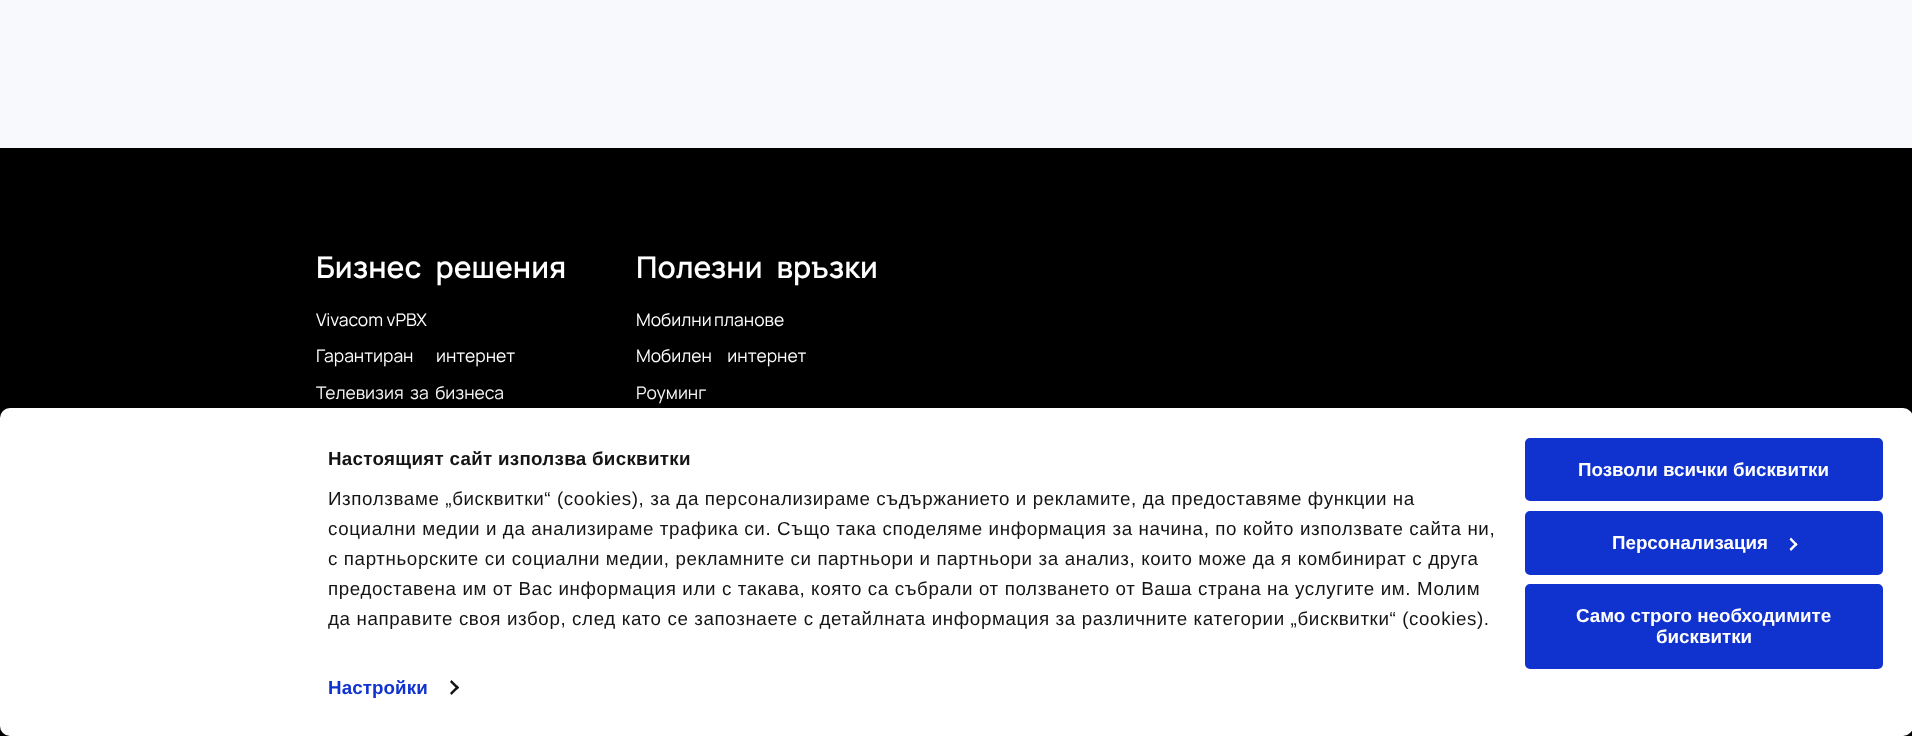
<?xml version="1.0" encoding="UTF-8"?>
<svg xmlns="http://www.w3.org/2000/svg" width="1912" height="736">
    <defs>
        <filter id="blur1" x="-50%" y="-200%" width="200%" height="500%"><feGaussianBlur stdDeviation="44"/></filter>
        <clipPath id="clip1"><rect x="328" y="445" width="1190" height="189"/></clipPath>
    </defs>
    <rect width="100%" height="100%" fill="#F7F9FC"/>
    <rect x="0" y="148" width="1912" height="588" fill="#000000"/>
    <text x="316" y="278" word-spacing="8" font-family="Manrope" font-size="30" font-weight="600" fill="#FFFFFF">Бизнес решения</text>
    <text x="316" y="326" font-family="Manrope" font-size="17.5" fill="#FFFFFF">Vivacom vPBX</text>
    <text x="316" y="362" word-spacing="19" font-family="Manrope" font-size="17.5" fill="#FFFFFF">Гарантиран интернет</text>
    <text x="316" y="399" word-spacing="3" font-family="Manrope" font-size="17.5" fill="#FFFFFF">Телевизия за бизнеса</text>
    <text x="636" y="278" word-spacing="8" font-family="Manrope" font-size="30" font-weight="600" fill="#FFFFFF">Полезни връзки</text>
    <text x="636" y="326" word-spacing="-1" font-family="Manrope" font-size="17.5" fill="#FFFFFF">Мобилни планове</text>
    <text x="636" y="362" word-spacing="12" font-family="Manrope" font-size="17.5" fill="#FFFFFF">Мобилен интернет</text>
    <text x="636" y="399" font-family="Manrope" font-size="17.5" fill="#FFFFFF">Роуминг</text>
    <rect x="0" y="445" width="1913" height="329" rx="10" fill="#000000" fill-opacity="0.3" filter="url(#blur1)"/>
    <rect x="0" y="408" width="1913" height="328" rx="10" fill="#FFFFFF"/>
    <text x="328" y="465" font-family="Liberation Sans" font-size="18.75" font-weight="700" letter-spacing="0.3" fill="#141414">Настоящият сайт използва бисквитки</text>
    <text font-family="Liberation Sans" font-size="18.75" letter-spacing="0.62" fill="#141414">
        <tspan x="328" y="505">Използваме „бисквитки“ (cookies), за да персонализираме съдържанието и рекламите, да предоставяме функции на</tspan>
        <tspan x="328" y="535">социални медии и да анализираме трафика си. Също така споделяме информация за начина, по който използвате сайта ни,</tspan>
        <tspan x="328" y="565">с партньорските си социални медии, рекламните си партньори и партньори за анализ, които може да я комбинират с друга</tspan>
        <tspan x="328" y="595">предоставена им от Вас информация или с такава, която са събрали от ползването от Ваша страна на услугите им. Молим</tspan>
    </text>
    <g clip-path="url(#clip1)">
        <text x="328" y="625" font-family="Liberation Sans" font-size="18.75" letter-spacing="0.62" fill="#141414">да направите своя избор, след като се запознаете с детайлната информация за различните категории „бисквитки“ (cookies).</text>
    </g>
    <text x="328" y="694" font-family="Liberation Sans" font-size="18.75" font-weight="700" letter-spacing="0.1" fill="#1032CF">Настройки</text>
    <path d="M 451.5 680 L 459 687.5 L 457.5 689.5 L 450 682 Z" fill="#141414"/>
    <path d="M 457.5 685.5 L 459 687.5 L 451.5 695 L 450 693 Z" fill="#141414"/>
    <rect x="1526.5" y="439.5" width="355" height="60" rx="3.5" fill="#1032CF" stroke="#1032CF" stroke-width="3"/>
    <text x="1578" y="476" font-family="Liberation Sans" font-size="18.75" font-weight="700" fill="#FFFFFF">Позволи всички бисквитки</text>
    <rect x="1526.5" y="512.5" width="355" height="61" rx="3.5" fill="#1032CF" stroke="#1032CF" stroke-width="3"/>
    <text x="1612" y="549" font-family="Liberation Sans" font-size="18.75" font-weight="700" fill="#FFFFFF">Персонализация</text>
    <path d="M 1791 537.5 L 1797.5 544.5 L 1796 546 L 1789.5 539.5 Z" fill="#FFFFFF"/>
    <path d="M 1796 542.5 L 1797.5 544.5 L 1791 551 L 1789.5 549 Z" fill="#FFFFFF"/>
    <rect x="1526.5" y="585.5" width="355" height="82" rx="3.5" fill="#1032CF" stroke="#1032CF" stroke-width="3"/>
    <text x="1576" y="622" font-family="Liberation Sans" font-size="18.75" font-weight="700" fill="#FFFFFF">Само строго необходимите</text>
    <text x="1656" y="643" font-family="Liberation Sans" font-size="18.75" font-weight="700" fill="#FFFFFF">бисквитки</text>
</svg>
